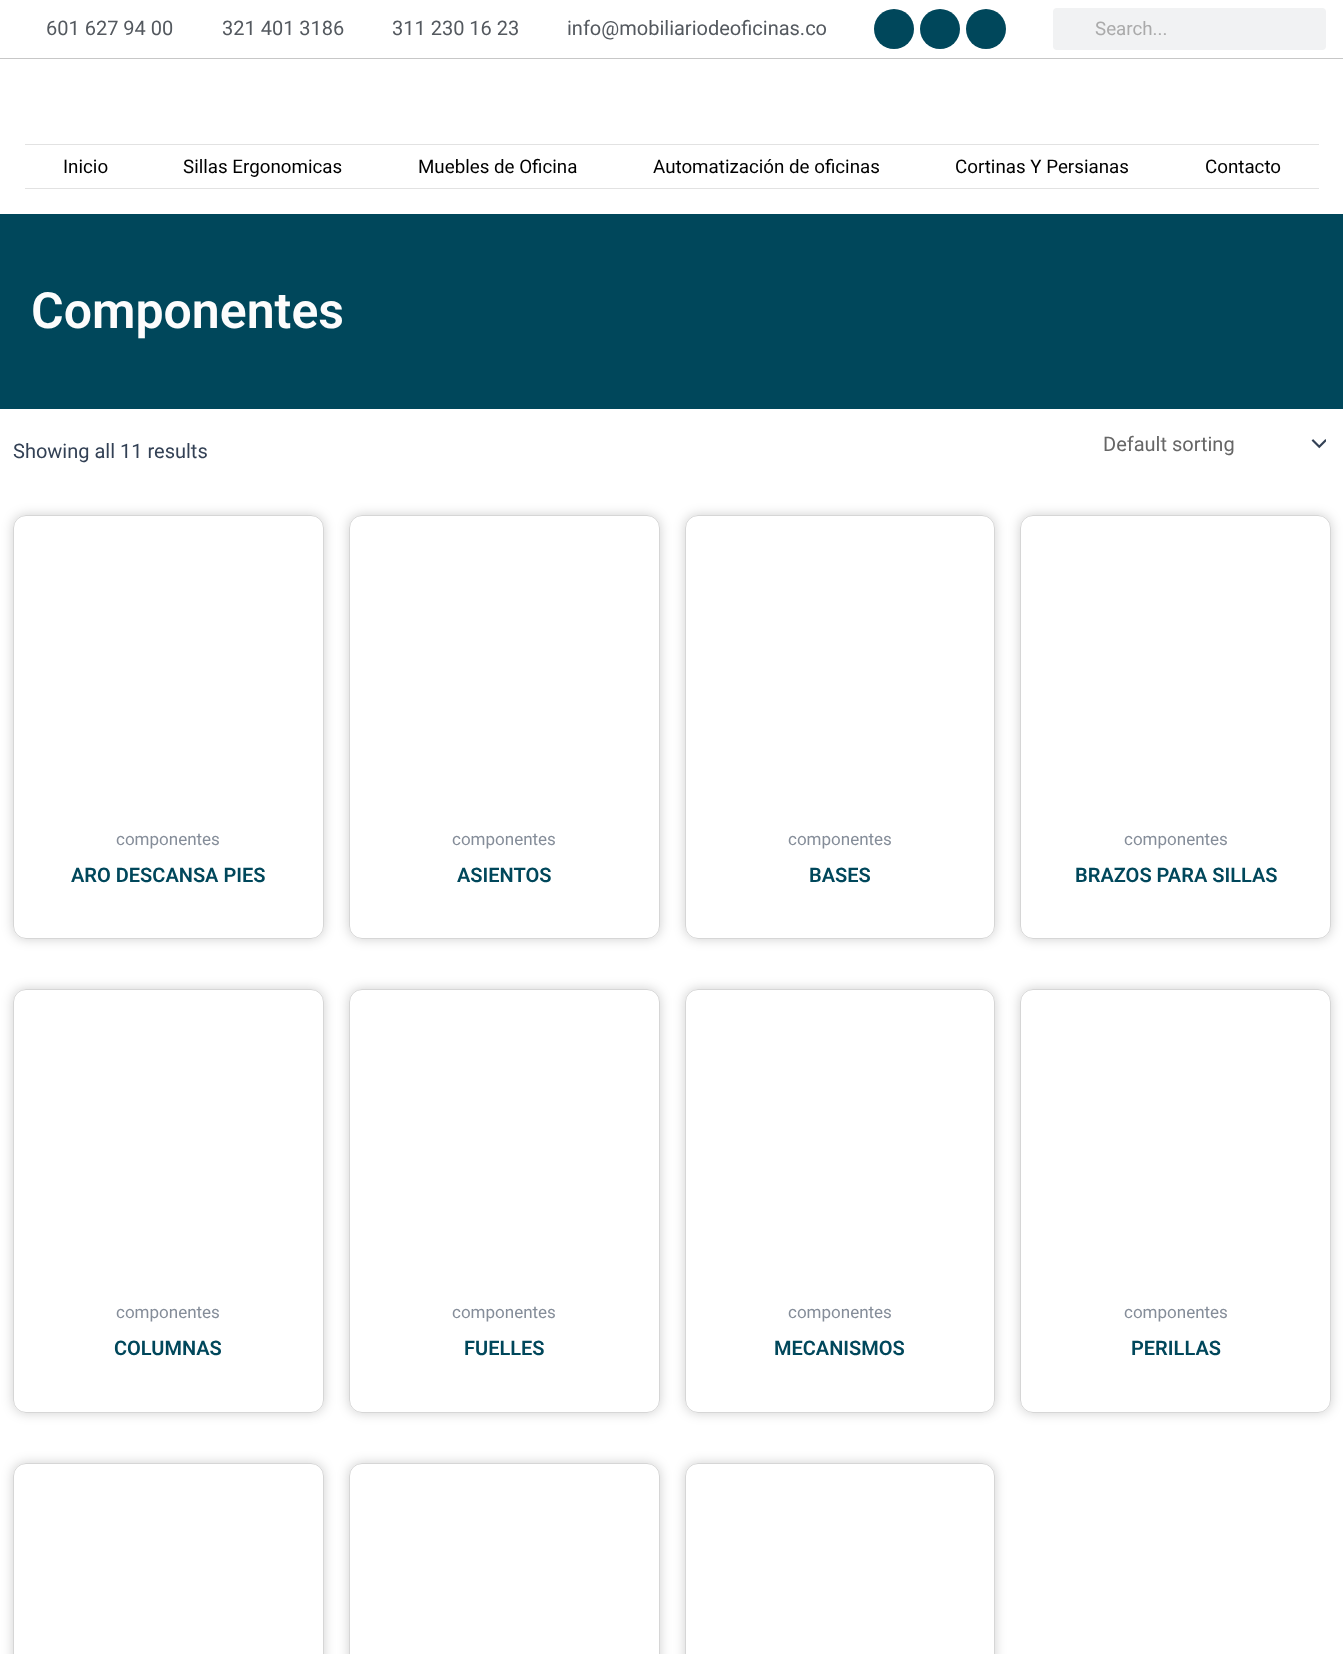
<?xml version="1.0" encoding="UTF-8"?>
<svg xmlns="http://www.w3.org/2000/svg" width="1343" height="1654">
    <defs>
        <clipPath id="clip1"><path d="M 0 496 H 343 V 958 H 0 Z M 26 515 H 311 C 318 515 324 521 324 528 V 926 C 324 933 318 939 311 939 H 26 C 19 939 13 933 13 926 V 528 C 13 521 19 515 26 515 Z" clip-rule="evenodd"/></clipPath>
        <filter id="blur1" x="-50%" y="-200%" width="200%" height="500%"><feGaussianBlur stdDeviation="6"/></filter>
        <clipPath id="clip2"><path d="M 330 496 H 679 V 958 H 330 Z M 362 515 H 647 C 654 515 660 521 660 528 V 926 C 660 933 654 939 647 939 H 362 C 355 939 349 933 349 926 V 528 C 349 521 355 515 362 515 Z" clip-rule="evenodd"/></clipPath>
        <clipPath id="clip3"><path d="M 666 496 H 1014 V 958 H 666 Z M 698 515 H 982 C 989 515 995 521 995 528 V 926 C 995 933 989 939 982 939 H 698 C 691 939 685 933 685 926 V 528 C 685 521 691 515 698 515 Z" clip-rule="evenodd"/></clipPath>
        <clipPath id="clip4"><path d="M 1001 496 H 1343 V 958 H 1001 Z M 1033 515 H 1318 C 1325 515 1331 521 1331 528 V 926 C 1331 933 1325 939 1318 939 H 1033 C 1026 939 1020 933 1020 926 V 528 C 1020 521 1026 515 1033 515 Z" clip-rule="evenodd"/></clipPath>
        <clipPath id="clip5"><path d="M 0 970 H 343 V 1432 H 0 Z M 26 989 H 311 C 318 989 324 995 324 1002 V 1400 C 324 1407 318 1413 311 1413 H 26 C 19 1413 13 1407 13 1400 V 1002 C 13 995 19 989 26 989 Z" clip-rule="evenodd"/></clipPath>
        <clipPath id="clip6"><path d="M 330 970 H 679 V 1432 H 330 Z M 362 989 H 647 C 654 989 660 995 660 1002 V 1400 C 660 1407 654 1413 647 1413 H 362 C 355 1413 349 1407 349 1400 V 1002 C 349 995 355 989 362 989 Z" clip-rule="evenodd"/></clipPath>
        <clipPath id="clip7"><path d="M 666 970 H 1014 V 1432 H 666 Z M 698 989 H 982 C 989 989 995 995 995 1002 V 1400 C 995 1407 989 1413 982 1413 H 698 C 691 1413 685 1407 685 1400 V 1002 C 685 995 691 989 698 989 Z" clip-rule="evenodd"/></clipPath>
        <clipPath id="clip8"><path d="M 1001 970 H 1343 V 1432 H 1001 Z M 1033 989 H 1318 C 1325 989 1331 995 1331 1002 V 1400 C 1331 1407 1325 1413 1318 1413 H 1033 C 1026 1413 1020 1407 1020 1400 V 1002 C 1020 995 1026 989 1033 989 Z" clip-rule="evenodd"/></clipPath>
        <clipPath id="clip9"><path d="M 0 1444 H 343 V 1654 H 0 Z M 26 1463 H 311 C 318 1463 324 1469 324 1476 V 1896 C 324 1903 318 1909 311 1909 H 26 C 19 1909 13 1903 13 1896 V 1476 C 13 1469 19 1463 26 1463 Z" clip-rule="evenodd"/></clipPath>
        <clipPath id="clip10"><path d="M 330 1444 H 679 V 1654 H 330 Z M 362 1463 H 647 C 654 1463 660 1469 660 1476 V 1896 C 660 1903 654 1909 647 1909 H 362 C 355 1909 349 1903 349 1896 V 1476 C 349 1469 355 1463 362 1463 Z" clip-rule="evenodd"/></clipPath>
        <clipPath id="clip11"><path d="M 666 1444 H 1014 V 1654 H 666 Z M 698 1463 H 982 C 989 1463 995 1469 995 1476 V 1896 C 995 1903 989 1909 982 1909 H 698 C 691 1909 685 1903 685 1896 V 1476 C 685 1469 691 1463 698 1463 Z" clip-rule="evenodd"/></clipPath>
    </defs>
    <rect width="100%" height="100%" fill="#FFFFFF"/>
    <rect x="0" y="58" width="1343" height="1" fill="#C7C7C7"/>
    <text x="46" y="35" font-family="Roboto" font-size="20" fill="#54595F">601 627 94 00</text>
    <text x="222" y="35" font-family="Roboto" font-size="20" fill="#54595F">321 401 3186</text>
    <text x="392" y="35" font-family="Roboto" font-size="20" fill="#54595F">311 230 16 23</text>
    <text x="567" y="35" font-family="Roboto" font-size="20" fill="#54595F">info@mobiliariodeoficinas.co</text>
    <circle cx="894" cy="29" r="20" fill="#00475B"/>
    <circle cx="940" cy="29" r="20" fill="#00475B"/>
    <circle cx="986" cy="29" r="20" fill="#00475B"/>
    <rect x="1053" y="8" width="273" height="42" rx="4" fill="#F1F2F3"/>
    <text x="1095" y="35" font-family="Roboto" font-size="18.75" fill="#AAAAAA">Search...</text>
    <rect x="25" y="144" width="1294" height="1" fill="#E2E2E2"/>
    <rect x="25" y="188" width="1294" height="1" fill="#E2E2E2"/>
    <text x="63" y="173" font-family="Roboto" font-size="18.75" fill="#000000">Inicio</text>
    <text x="183" y="173" font-family="Roboto" font-size="18.75" fill="#000000">Sillas Ergonomicas</text>
    <text x="418" y="173" font-family="Roboto" font-size="18.75" fill="#000000">Muebles de Oficina</text>
    <text x="653" y="173" font-family="Roboto" font-size="18.75" fill="#000000">Automatización de oficinas</text>
    <text x="955" y="173" font-family="Roboto" font-size="18.75" fill="#000000">Cortinas Y Persianas</text>
    <text x="1205" y="173" font-family="Roboto" font-size="18.75" fill="#000000">Contacto</text>
    <rect x="0" y="214" width="1343" height="195" fill="#00475B"/>
    <text x="31" y="328" font-family="Roboto" font-size="50" font-weight="600" fill="#FCFCFC">Componentes</text>
    <text x="13" y="458" font-family="Roboto" font-size="20" fill="#334155">Showing all 11 results</text>
    <image x="1311" y="439" width="15" height="10" href="img_01.png"/>
    <text x="1103" y="451" font-family="Roboto" font-size="20" fill="#666666">Default sorting</text>
    <g clip-path="url(#clip1)">
        <rect x="13" y="515" width="311" height="424" rx="13" fill="#000000" fill-opacity="0.19" filter="url(#blur1)"/>
    </g>
    <rect x="13.5" y="515.5" width="310" height="423" rx="12.5" fill="none" stroke="#D6D6D6"/>
    <text x="116" y="845" font-family="Roboto" font-size="17" fill="#858D99">componentes</text>
    <text x="71" y="882" font-family="Roboto" font-size="20" font-weight="600" fill="#00475B">ARO DESCANSA PIES</text>
    <g clip-path="url(#clip2)">
        <rect x="349" y="515" width="311" height="424" rx="13" fill="#000000" fill-opacity="0.19" filter="url(#blur1)"/>
    </g>
    <rect x="349.5" y="515.5" width="310" height="423" rx="12.5" fill="none" stroke="#D6D6D6"/>
    <text x="452" y="845" font-family="Roboto" font-size="17" fill="#858D99">componentes</text>
    <text x="457" y="882" font-family="Roboto" font-size="20" font-weight="600" fill="#00475B">ASIENTOS</text>
    <g clip-path="url(#clip3)">
        <rect x="685" y="515" width="310" height="424" rx="13" fill="#000000" fill-opacity="0.19" filter="url(#blur1)"/>
    </g>
    <rect x="685.5" y="515.5" width="309" height="423" rx="12.5" fill="none" stroke="#D6D6D6"/>
    <text x="788" y="845" font-family="Roboto" font-size="17" fill="#858D99">componentes</text>
    <text x="809" y="882" font-family="Roboto" font-size="20" font-weight="600" fill="#00475B">BASES</text>
    <g clip-path="url(#clip4)">
        <rect x="1020" y="515" width="311" height="424" rx="13" fill="#000000" fill-opacity="0.19" filter="url(#blur1)"/>
    </g>
    <rect x="1020.5" y="515.5" width="310" height="423" rx="12.5" fill="none" stroke="#D6D6D6"/>
    <text x="1124" y="845" font-family="Roboto" font-size="17" fill="#858D99">componentes</text>
    <text x="1075" y="882" font-family="Roboto" font-size="20" font-weight="600" fill="#00475B">BRAZOS PARA SILLAS</text>
    <g clip-path="url(#clip5)">
        <rect x="13" y="989" width="311" height="424" rx="13" fill="#000000" fill-opacity="0.19" filter="url(#blur1)"/>
    </g>
    <rect x="13.5" y="989.5" width="310" height="423" rx="12.5" fill="none" stroke="#D6D6D6"/>
    <text x="116" y="1318" font-family="Roboto" font-size="17" fill="#858D99">componentes</text>
    <text x="114" y="1355" font-family="Roboto" font-size="20" font-weight="600" fill="#00475B">COLUMNAS</text>
    <g clip-path="url(#clip6)">
        <rect x="349" y="989" width="311" height="424" rx="13" fill="#000000" fill-opacity="0.19" filter="url(#blur1)"/>
    </g>
    <rect x="349.5" y="989.5" width="310" height="423" rx="12.5" fill="none" stroke="#D6D6D6"/>
    <text x="452" y="1318" font-family="Roboto" font-size="17" fill="#858D99">componentes</text>
    <text x="464" y="1355" font-family="Roboto" font-size="20" font-weight="600" fill="#00475B">FUELLES</text>
    <g clip-path="url(#clip7)">
        <rect x="685" y="989" width="310" height="424" rx="13" fill="#000000" fill-opacity="0.19" filter="url(#blur1)"/>
    </g>
    <rect x="685.5" y="989.5" width="309" height="423" rx="12.5" fill="none" stroke="#D6D6D6"/>
    <text x="788" y="1318" font-family="Roboto" font-size="17" fill="#858D99">componentes</text>
    <text x="774" y="1355" font-family="Roboto" font-size="20" font-weight="600" fill="#00475B">MECANISMOS</text>
    <g clip-path="url(#clip8)">
        <rect x="1020" y="989" width="311" height="424" rx="13" fill="#000000" fill-opacity="0.19" filter="url(#blur1)"/>
    </g>
    <rect x="1020.5" y="989.5" width="310" height="423" rx="12.5" fill="none" stroke="#D6D6D6"/>
    <text x="1124" y="1318" font-family="Roboto" font-size="17" fill="#858D99">componentes</text>
    <text x="1131" y="1355" font-family="Roboto" font-size="20" font-weight="600" fill="#00475B">PERILLAS</text>
    <g clip-path="url(#clip9)">
        <rect x="13" y="1463" width="311" height="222" rx="13" fill="#000000" fill-opacity="0.19" filter="url(#blur1)"/>
    </g>
    <rect x="13.5" y="1463.5" width="310" height="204" rx="12.5" fill="none" stroke="#D6D6D6"/>
    <g clip-path="url(#clip10)">
        <rect x="349" y="1463" width="311" height="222" rx="13" fill="#000000" fill-opacity="0.19" filter="url(#blur1)"/>
    </g>
    <rect x="349.5" y="1463.5" width="310" height="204" rx="12.5" fill="none" stroke="#D6D6D6"/>
    <g clip-path="url(#clip11)">
        <rect x="685" y="1463" width="310" height="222" rx="13" fill="#000000" fill-opacity="0.19" filter="url(#blur1)"/>
    </g>
    <rect x="685.5" y="1463.5" width="309" height="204" rx="12.5" fill="none" stroke="#D6D6D6"/>
</svg>
